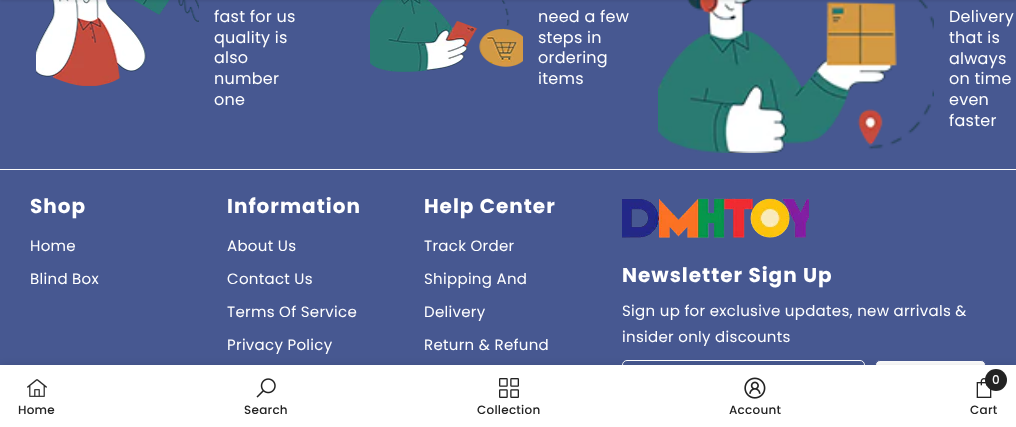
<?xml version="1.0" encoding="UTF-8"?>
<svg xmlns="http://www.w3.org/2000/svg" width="1016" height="427">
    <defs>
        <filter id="blur1" x="-50%" y="-200%" width="200%" height="500%"><feGaussianBlur stdDeviation="1.5"/></filter>
        <filter id="blur2" x="-50%" y="-200%" width="200%" height="500%"><feGaussianBlur stdDeviation="4.5"/></filter>
    </defs>
    <rect width="100%" height="100%" fill="#475891"/>
    <image x="36" y="0" width="163" height="86" href="img_01.png"/>
    <image x="370" y="0" width="153" height="72" href="img_02.png"/>
    <image x="658" y="0" width="276" height="153" href="img_03.png"/>
    <rect x="0" y="-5" width="1016" height="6" fill="#000000" fill-opacity="0.1" filter="url(#blur1)"/>
    <text font-family="Poppins" font-size="16" letter-spacing="0.25" fill="#FFFFFF">
        <tspan x="214" y="22">fast for us</tspan>
        <tspan x="214" y="43">quality is</tspan>
        <tspan x="214" y="63">also</tspan>
        <tspan x="214" y="84">number</tspan>
        <tspan x="214" y="105">one</tspan>
    </text>
    <text font-family="Poppins" font-size="16" letter-spacing="0.25" fill="#FFFFFF">
        <tspan x="538" y="22">need a few</tspan>
        <tspan x="538" y="43">steps in</tspan>
        <tspan x="538" y="63">ordering</tspan>
        <tspan x="538" y="84">items</tspan>
    </text>
    <text font-family="Poppins" font-size="16" letter-spacing="0.25" fill="#FFFFFF">
        <tspan x="949" y="22">Delivery</tspan>
        <tspan x="949" y="43">that is</tspan>
        <tspan x="949" y="64">always</tspan>
        <tspan x="949" y="84">on time</tspan>
        <tspan x="949" y="105">even</tspan>
        <tspan x="949" y="126">faster</tspan>
    </text>
    <rect x="0" y="169" width="1016" height="1" fill="#FAFAFA"/>
    <text x="30" y="213" font-family="Poppins" font-size="20" font-weight="700" letter-spacing="1" fill="#FFFFFF">Shop</text>
    <text x="30" y="251" font-family="Poppins" font-size="15" letter-spacing="0.3" fill="#FFFFFF">Home</text>
    <text x="30" y="284" font-family="Poppins" font-size="15" letter-spacing="0.3" fill="#FFFFFF">Blind Box</text>
    <text x="227" y="213" font-family="Poppins" font-size="20" font-weight="700" letter-spacing="1" fill="#FFFFFF">Information</text>
    <text x="227" y="251" font-family="Poppins" font-size="15" letter-spacing="0.3" fill="#FFFFFF">About Us</text>
    <text x="227" y="284" font-family="Poppins" font-size="15" letter-spacing="0.3" fill="#FFFFFF">Contact Us</text>
    <text x="227" y="317" font-family="Poppins" font-size="15" letter-spacing="0.3" fill="#FFFFFF">Terms Of Service</text>
    <text x="227" y="350" font-family="Poppins" font-size="15" letter-spacing="0.3" fill="#FFFFFF">Privacy Policy</text>
    <text x="424" y="213" font-family="Poppins" font-size="20" font-weight="700" letter-spacing="1" fill="#FFFFFF">Help Center</text>
    <text x="424" y="251" font-family="Poppins" font-size="15" letter-spacing="0.3" fill="#FFFFFF">Track Order</text>
    <text x="424" y="284" font-family="Poppins" font-size="15" letter-spacing="0.3" fill="#FFFFFF">Shipping And</text>
    <text x="424" y="317" font-family="Poppins" font-size="15" letter-spacing="0.3" fill="#FFFFFF">Delivery</text>
    <text x="424" y="350" font-family="Poppins" font-size="15" letter-spacing="0.3" fill="#FFFFFF">Return &amp; Refund</text>
    <image x="622" y="198" width="187" height="40" href="img_04.png"/>
    <text x="622" y="282" font-family="Poppins" font-size="20" font-weight="700" letter-spacing="1" fill="#FFFFFF">Newsletter Sign Up</text>
    <text font-family="Poppins" font-size="15" letter-spacing="0.3" fill="#FFFFFF">
        <tspan x="622" y="316">Sign up for exclusive updates, new arrivals &amp;</tspan>
        <tspan x="622" y="342">insider only discounts</tspan>
    </text>
    <rect x="622.5" y="360.5" width="242" height="43" rx="4.5" fill="none" stroke="#FFFFFF"/>
    <rect x="875.5" y="360.5" width="110" height="43" rx="4.5" fill="#FFFFFF" stroke="#475891"/>
    <rect x="0" y="365" width="1016" height="62" fill="#000000" fill-opacity="0.12" filter="url(#blur2)"/>
    <rect x="0" y="365" width="1016" height="62" fill="#FFFFFF"/>
    <image x="27" y="379" width="20" height="18" href="img_05.png"/>
    <text x="18" y="414" font-family="Poppins" font-size="12" font-weight="500" letter-spacing="0.25" fill="#232323">Home</text>
    <image x="256" y="378" width="20" height="20" href="img_06.png"/>
    <text x="244" y="414" font-family="Poppins" font-size="12" font-weight="500" letter-spacing="0.25" fill="#232323">Search</text>
    <image x="499" y="378" width="20" height="20" href="img_07.png"/>
    <text x="477" y="414" font-family="Poppins" font-size="12" font-weight="500" letter-spacing="0.25" fill="#232323">Collection</text>
    <image x="744" y="377" width="22" height="22" href="img_08.png"/>
    <text x="729" y="414" font-family="Poppins" font-size="12" font-weight="500" letter-spacing="0.25" fill="#232323">Account</text>
    <image x="976" y="378" width="16" height="20" href="img_09.png"/>
    <circle cx="996" cy="380" r="11" fill="#232323"/>
    <text x="992" y="384" font-family="Poppins" font-size="12" font-weight="500" fill="#FFFFFF">0</text>
    <text x="970" y="414" font-family="Poppins" font-size="12" font-weight="500" letter-spacing="0.25" fill="#232323">Cart</text>
</svg>
